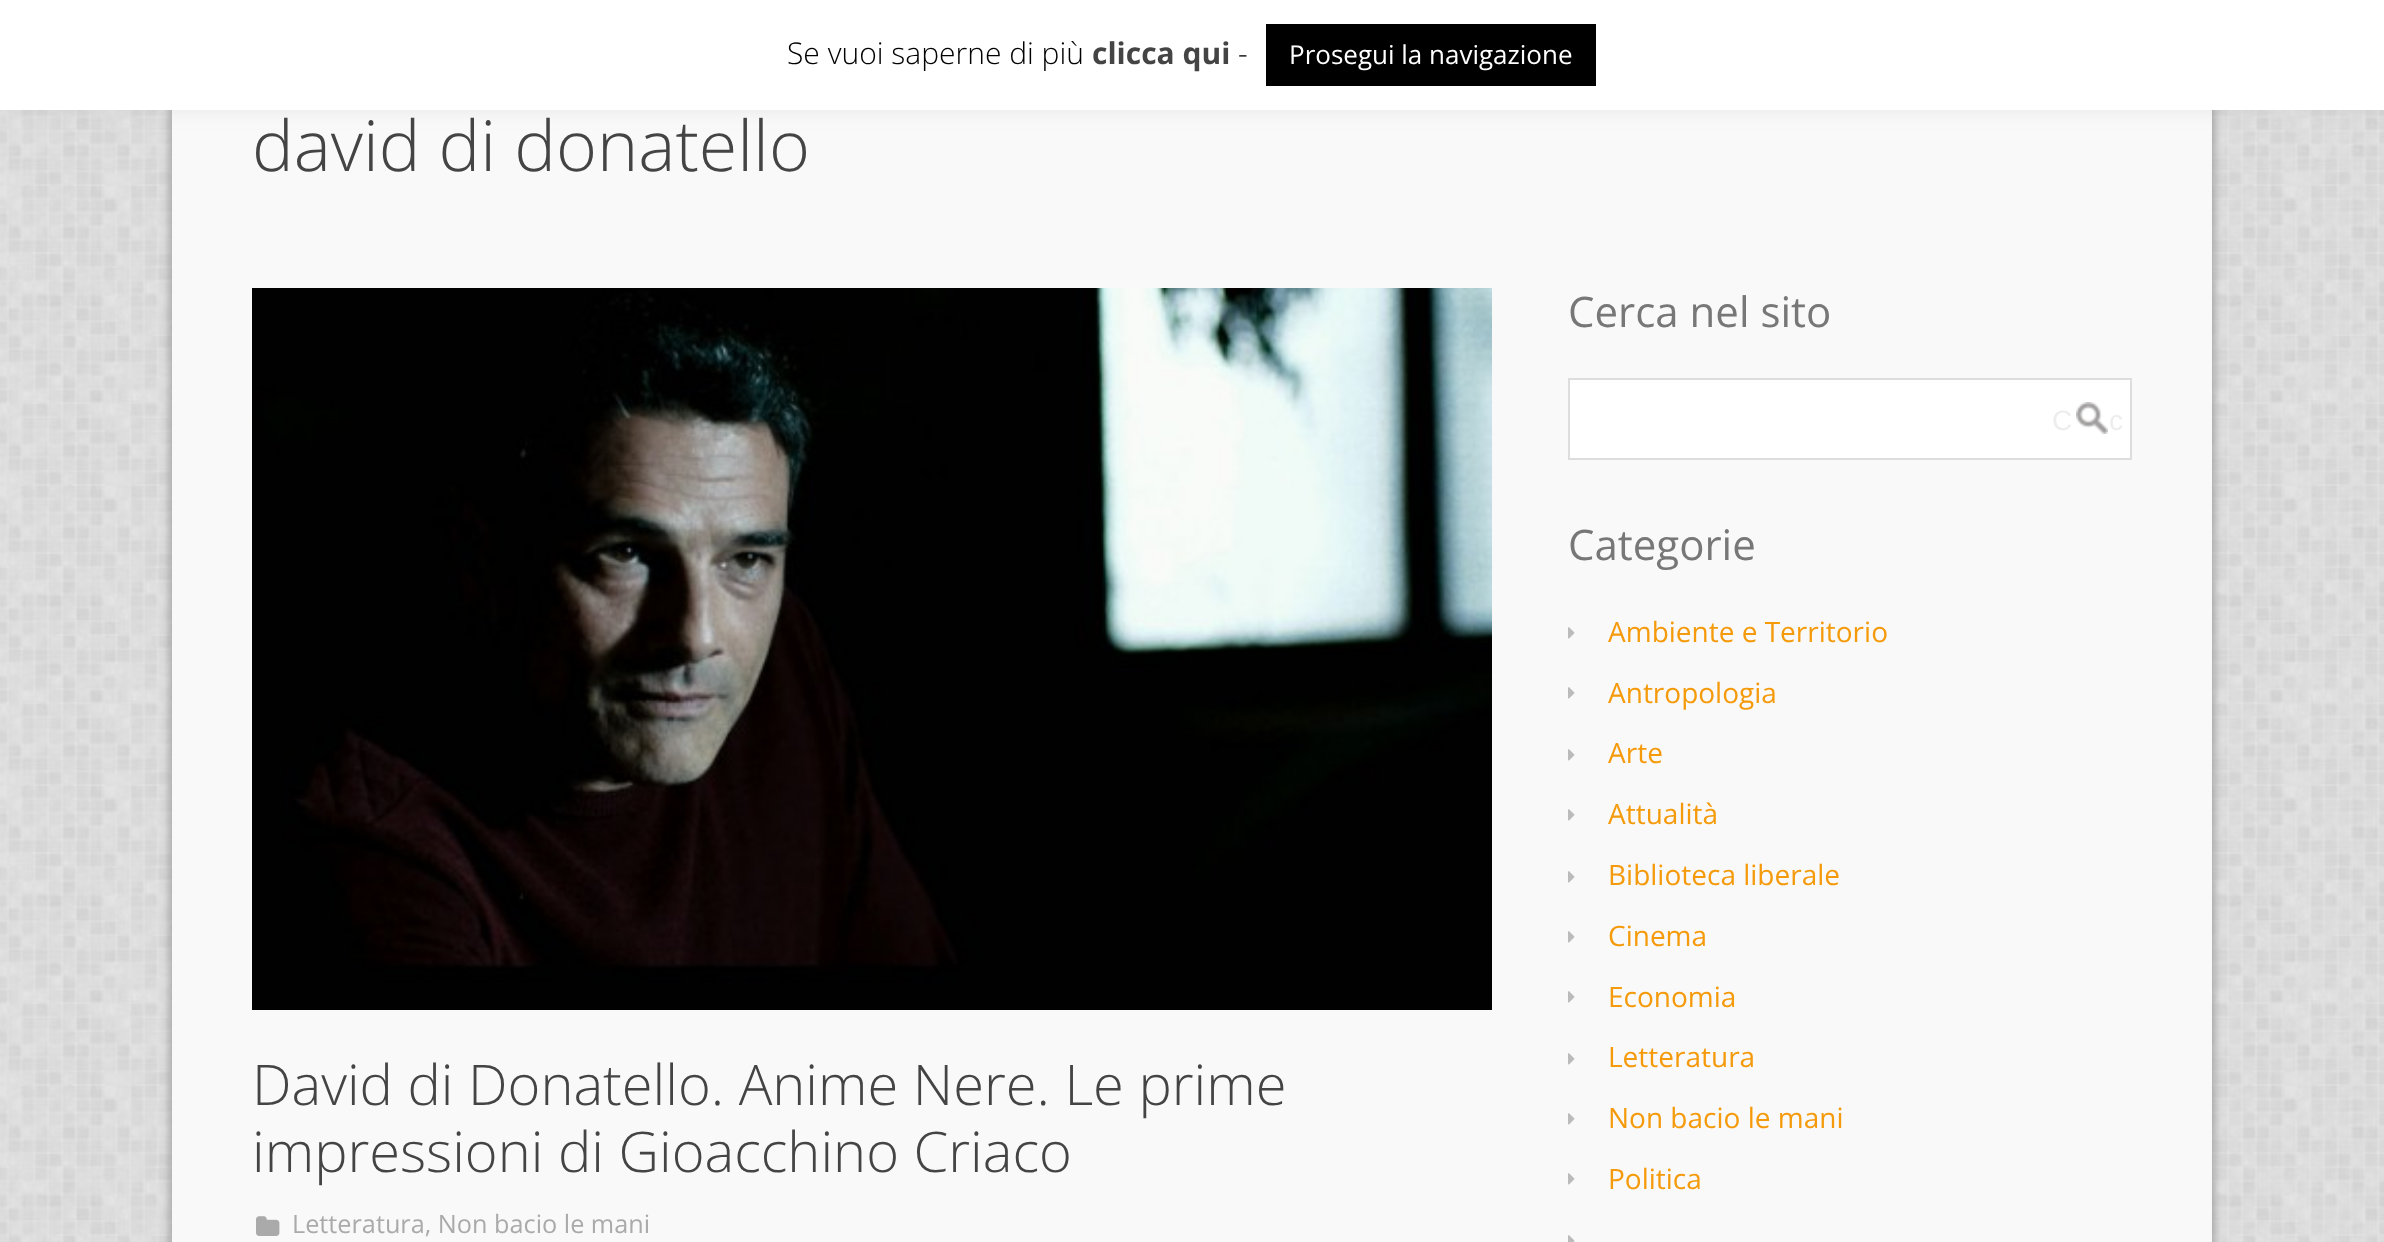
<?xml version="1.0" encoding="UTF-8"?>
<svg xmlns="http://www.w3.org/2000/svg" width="2384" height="1242">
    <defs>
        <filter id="blur1" x="-50%" y="-200%" width="200%" height="500%"><feGaussianBlur stdDeviation="3"/></filter>
        <filter id="blur2" x="-50%" y="-200%" width="200%" height="500%"><feGaussianBlur stdDeviation="10"/></filter>
    </defs>
    <rect width="100%" height="100%" fill="#FFFFFF"/>
    <image x="0" y="110" width="2384" height="1132" href="img_01.png"/>
    <rect x="168" y="-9" width="2048" height="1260" fill="#000000" fill-opacity="0.2" filter="url(#blur1)"/>
    <rect x="172" y="110" width="2040" height="1132" fill="#F9F9F9"/>
    <rect x="0" y="-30" width="2384" height="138" fill="#ACABAB" fill-opacity="0.3" filter="url(#blur2)"/>
    <rect x="0" y="0" width="2384" height="110" fill="#FFFFFF"/>
    <text x="787" y="64" font-family="Open Sans" font-size="30" font-weight="300" fill="#000000">Se vuoi saperne di più</text>
    <text x="1092" y="64" font-family="Open Sans" font-size="30" font-weight="700" fill="#444444">clicca qui</text>
    <text x="1238" y="64" font-family="Open Sans" font-size="30" font-weight="300" fill="#000000">-</text>
    <rect x="1266" y="24" width="330" height="62" fill="#000000"/>
    <text x="1289" y="64" font-family="Open Sans" font-size="26" fill="#FFFFFF">Prosegui la navigazione</text>
    <text x="252" y="171" font-family="Open Sans" font-size="70" font-weight="300" fill="#444444">david di donatello</text>
    <image x="252" y="288" width="1240" height="722" href="img_02.png"/>
    <text font-family="Open Sans" font-size="56" font-weight="300" fill="#444444">
        <tspan x="252" y="1105">David di Donatello. Anime Nere. Le prime</tspan>
        <tspan x="252" y="1172">impressioni di Gioacchino Criaco</tspan>
    </text>
    <image x="256" y="1216" width="24" height="20" href="img_03.png"/>
    <text x="292" y="1233" font-family="Open Sans" font-size="25.25" fill="#AAAAAA">Letteratura, Non bacio le mani</text>
    <text x="1568" y="327" font-family="Open Sans" font-size="42" fill="#777777">Cerca nel sito</text>
    <rect x="1569" y="379" width="562" height="80" fill="#FFFFFF" stroke="#DDDDDD" stroke-width="2"/>
    <image x="2076" y="402" width="32" height="32" href="img_04.png"/>
    <text x="2052" y="430" font-family="Liberation Sans" font-size="28" letter-spacing="4" fill="#EEEDED">C</text>
    <text x="2109" y="430" font-family="Liberation Sans" font-size="28" letter-spacing="4" fill="#EEEDED">c</text>
    <text x="1568" y="560" font-family="Open Sans" font-size="42" fill="#777777">Categorie</text>
    <image x="1568" y="627" width="7" height="12" href="img_05.png"/>
    <text x="1608" y="642" font-family="Open Sans" font-size="28" fill="#F59A0A">Ambiente e Territorio</text>
    <image x="1568" y="687" width="7" height="12" href="img_05.png"/>
    <text x="1608" y="703" font-family="Open Sans" font-size="28" fill="#F59A0A">Antropologia</text>
    <image x="1568" y="749" width="7" height="12" href="img_05.png"/>
    <text x="1608" y="763" font-family="Open Sans" font-size="28" fill="#F59A0A">Arte</text>
    <image x="1568" y="809" width="7" height="12" href="img_05.png"/>
    <text x="1608" y="824" font-family="Open Sans" font-size="28" fill="#F59A0A">Attualità</text>
    <image x="1568" y="871" width="7" height="12" href="img_05.png"/>
    <text x="1608" y="885" font-family="Open Sans" font-size="28" fill="#F59A0A">Biblioteca liberale</text>
    <image x="1568" y="931" width="7" height="12" href="img_05.png"/>
    <text x="1608" y="946" font-family="Open Sans" font-size="28" fill="#F59A0A">Cinema</text>
    <image x="1568" y="991" width="7" height="12" href="img_05.png"/>
    <text x="1608" y="1007" font-family="Open Sans" font-size="28" fill="#F59A0A">Economia</text>
    <image x="1568" y="1053" width="7" height="12" href="img_05.png"/>
    <text x="1608" y="1067" font-family="Open Sans" font-size="28" fill="#F59A0A">Letteratura</text>
    <image x="1568" y="1113" width="7" height="12" href="img_05.png"/>
    <text x="1608" y="1128" font-family="Open Sans" font-size="28" fill="#F59A0A">Non bacio le mani</text>
    <image x="1568" y="1173" width="7" height="12" href="img_05.png"/>
    <text x="1608" y="1189" font-family="Open Sans" font-size="28" fill="#F59A0A">Politica</text>
    <image x="1568" y="1235" width="7" height="7" href="img_06.png"/>
</svg>
